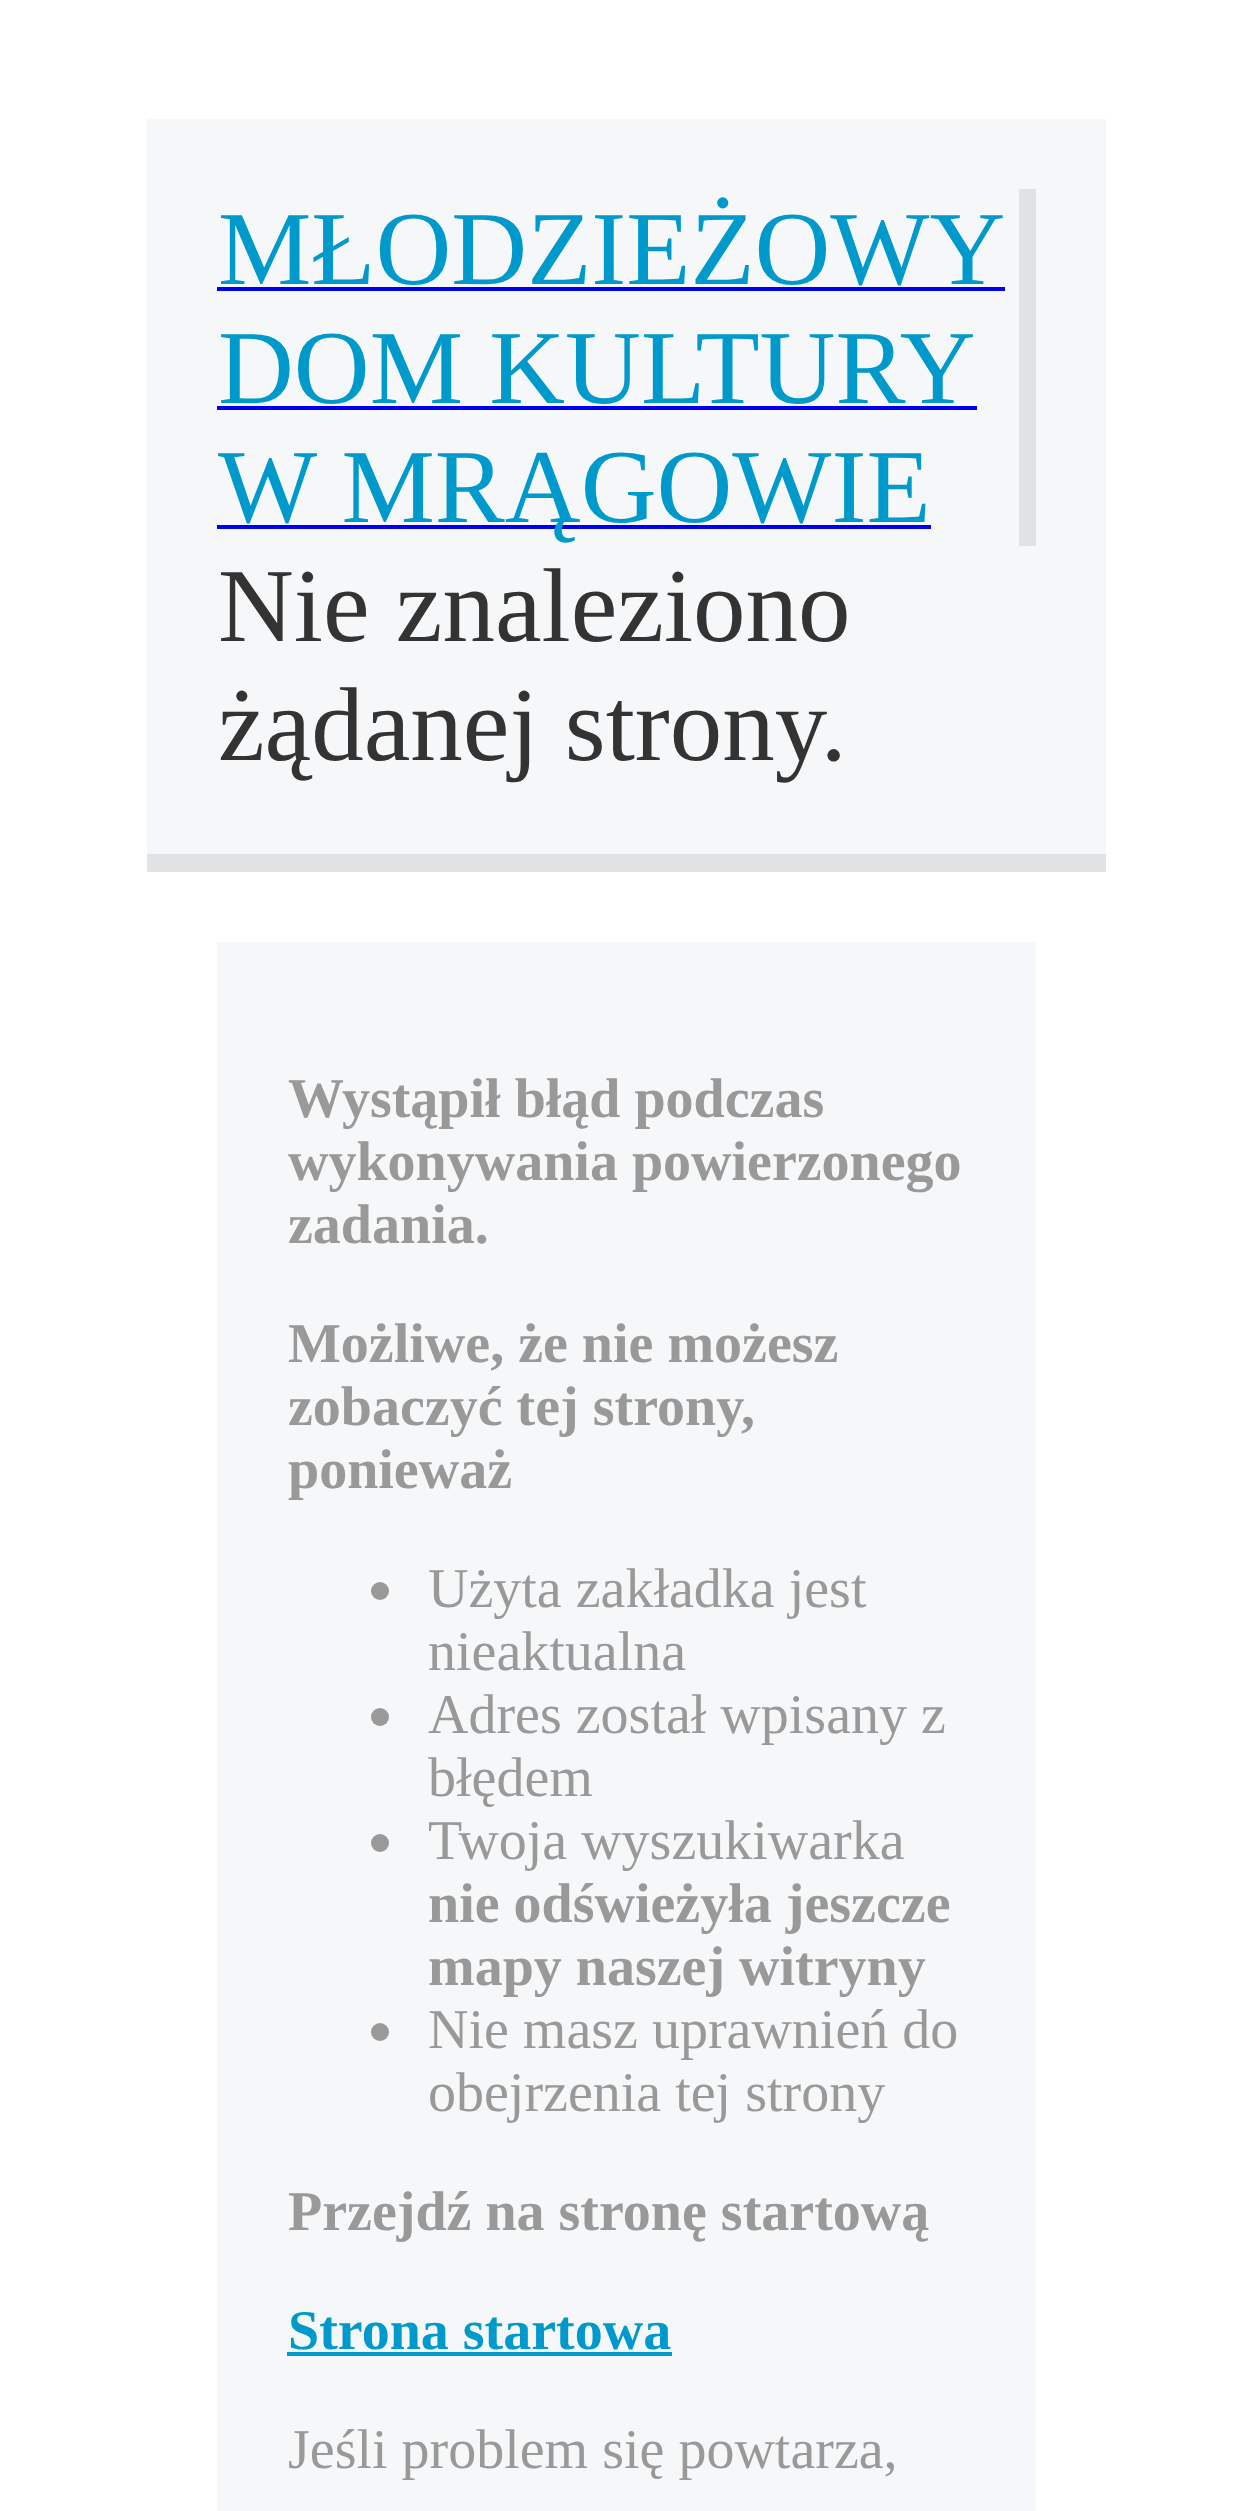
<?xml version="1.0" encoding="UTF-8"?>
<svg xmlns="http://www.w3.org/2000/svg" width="1250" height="2511">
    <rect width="100%" height="100%" fill="#FFFFFF"/>
    <rect x="147" y="119" width="959" height="735" fill="#F6F7F8"/>
    <rect x="147" y="854" width="959" height="18" fill="#E1E2E3"/>
    <rect x="1019" y="189" width="17" height="357" fill="#E1E2E3"/>
    <text x="218" y="284" font-family="Liberation Serif" font-size="105" fill="#0099CC">MŁODZIEŻOWY</text>
    <rect x="217" y="287" width="788" height="4" fill="#0000EE"/>
    <text x="218" y="403" font-family="Liberation Serif" font-size="105" fill="#0099CC">DOM KULTURY</text>
    <rect x="217" y="406" width="760" height="4" fill="#0000EE"/>
    <rect x="217" y="525" width="714" height="4" fill="#0000EE"/>
    <text x="218" y="522" font-family="Liberation Serif" font-size="105" fill="#0099CC">W MRĄGOWIE</text>
    <text font-family="Liberation Serif" font-size="105" fill="#333333">
        <tspan x="218" y="641">Nie znaleziono</tspan>
        <tspan x="218" y="760">żądanej strony.</tspan>
    </text>
    <rect x="217" y="942" width="819" height="1569" fill="#F6F7F8"/>
    <text font-family="Liberation Serif" font-size="56" font-weight="700" fill="#999999">
        <tspan x="288" y="1117">Wystąpił błąd podczas</tspan>
        <tspan x="288" y="1180">wykonywania powierzonego</tspan>
        <tspan x="288" y="1243">zadania.</tspan>
    </text>
    <text font-family="Liberation Serif" font-size="56" font-weight="700" fill="#999999">
        <tspan x="288" y="1362">Możliwe, że nie możesz</tspan>
        <tspan x="288" y="1425">zobaczyć tej strony,</tspan>
        <tspan x="288" y="1488">ponieważ</tspan>
    </text>
    <circle cx="380" cy="1591" r="9" fill="#999999"/>
    <text font-family="Liberation Serif" font-size="56" fill="#999999">
        <tspan x="428" y="1607">Użyta zakładka jest</tspan>
        <tspan x="428" y="1670">nieaktualna</tspan>
    </text>
    <circle cx="380" cy="1717" r="9" fill="#999999"/>
    <text font-family="Liberation Serif" font-size="56" fill="#999999">
        <tspan x="428" y="1733">Adres został wpisany z</tspan>
        <tspan x="428" y="1796">błędem</tspan>
    </text>
    <circle cx="380" cy="1843" r="9" fill="#999999"/>
    <text x="428" y="1859" font-family="Liberation Serif" font-size="56" fill="#999999">Twoja wyszukiwarka</text>
    <text font-family="Liberation Serif" font-size="56" font-weight="700" fill="#999999">
        <tspan x="428" y="1922">nie odświeżyła jeszcze</tspan>
        <tspan x="428" y="1985">mapy naszej witryny</tspan>
    </text>
    <circle cx="380" cy="2032" r="9" fill="#999999"/>
    <text font-family="Liberation Serif" font-size="56" fill="#999999">
        <tspan x="428" y="2048">Nie masz uprawnień do</tspan>
        <tspan x="428" y="2111">obejrzenia tej strony</tspan>
    </text>
    <text x="288" y="2230" font-family="Liberation Serif" font-size="56" font-weight="700" fill="#999999">Przejdź na stronę startową</text>
    <text x="288" y="2349" font-family="Liberation Serif" font-size="56" font-weight="700" fill="#0099CC">Strona startowa</text>
    <rect x="287" y="2352" width="385" height="4" fill="#0099CC"/>
    <text x="288" y="2468" font-family="Liberation Serif" font-size="56" fill="#999999">Jeśli problem się powtarza,</text>
</svg>
